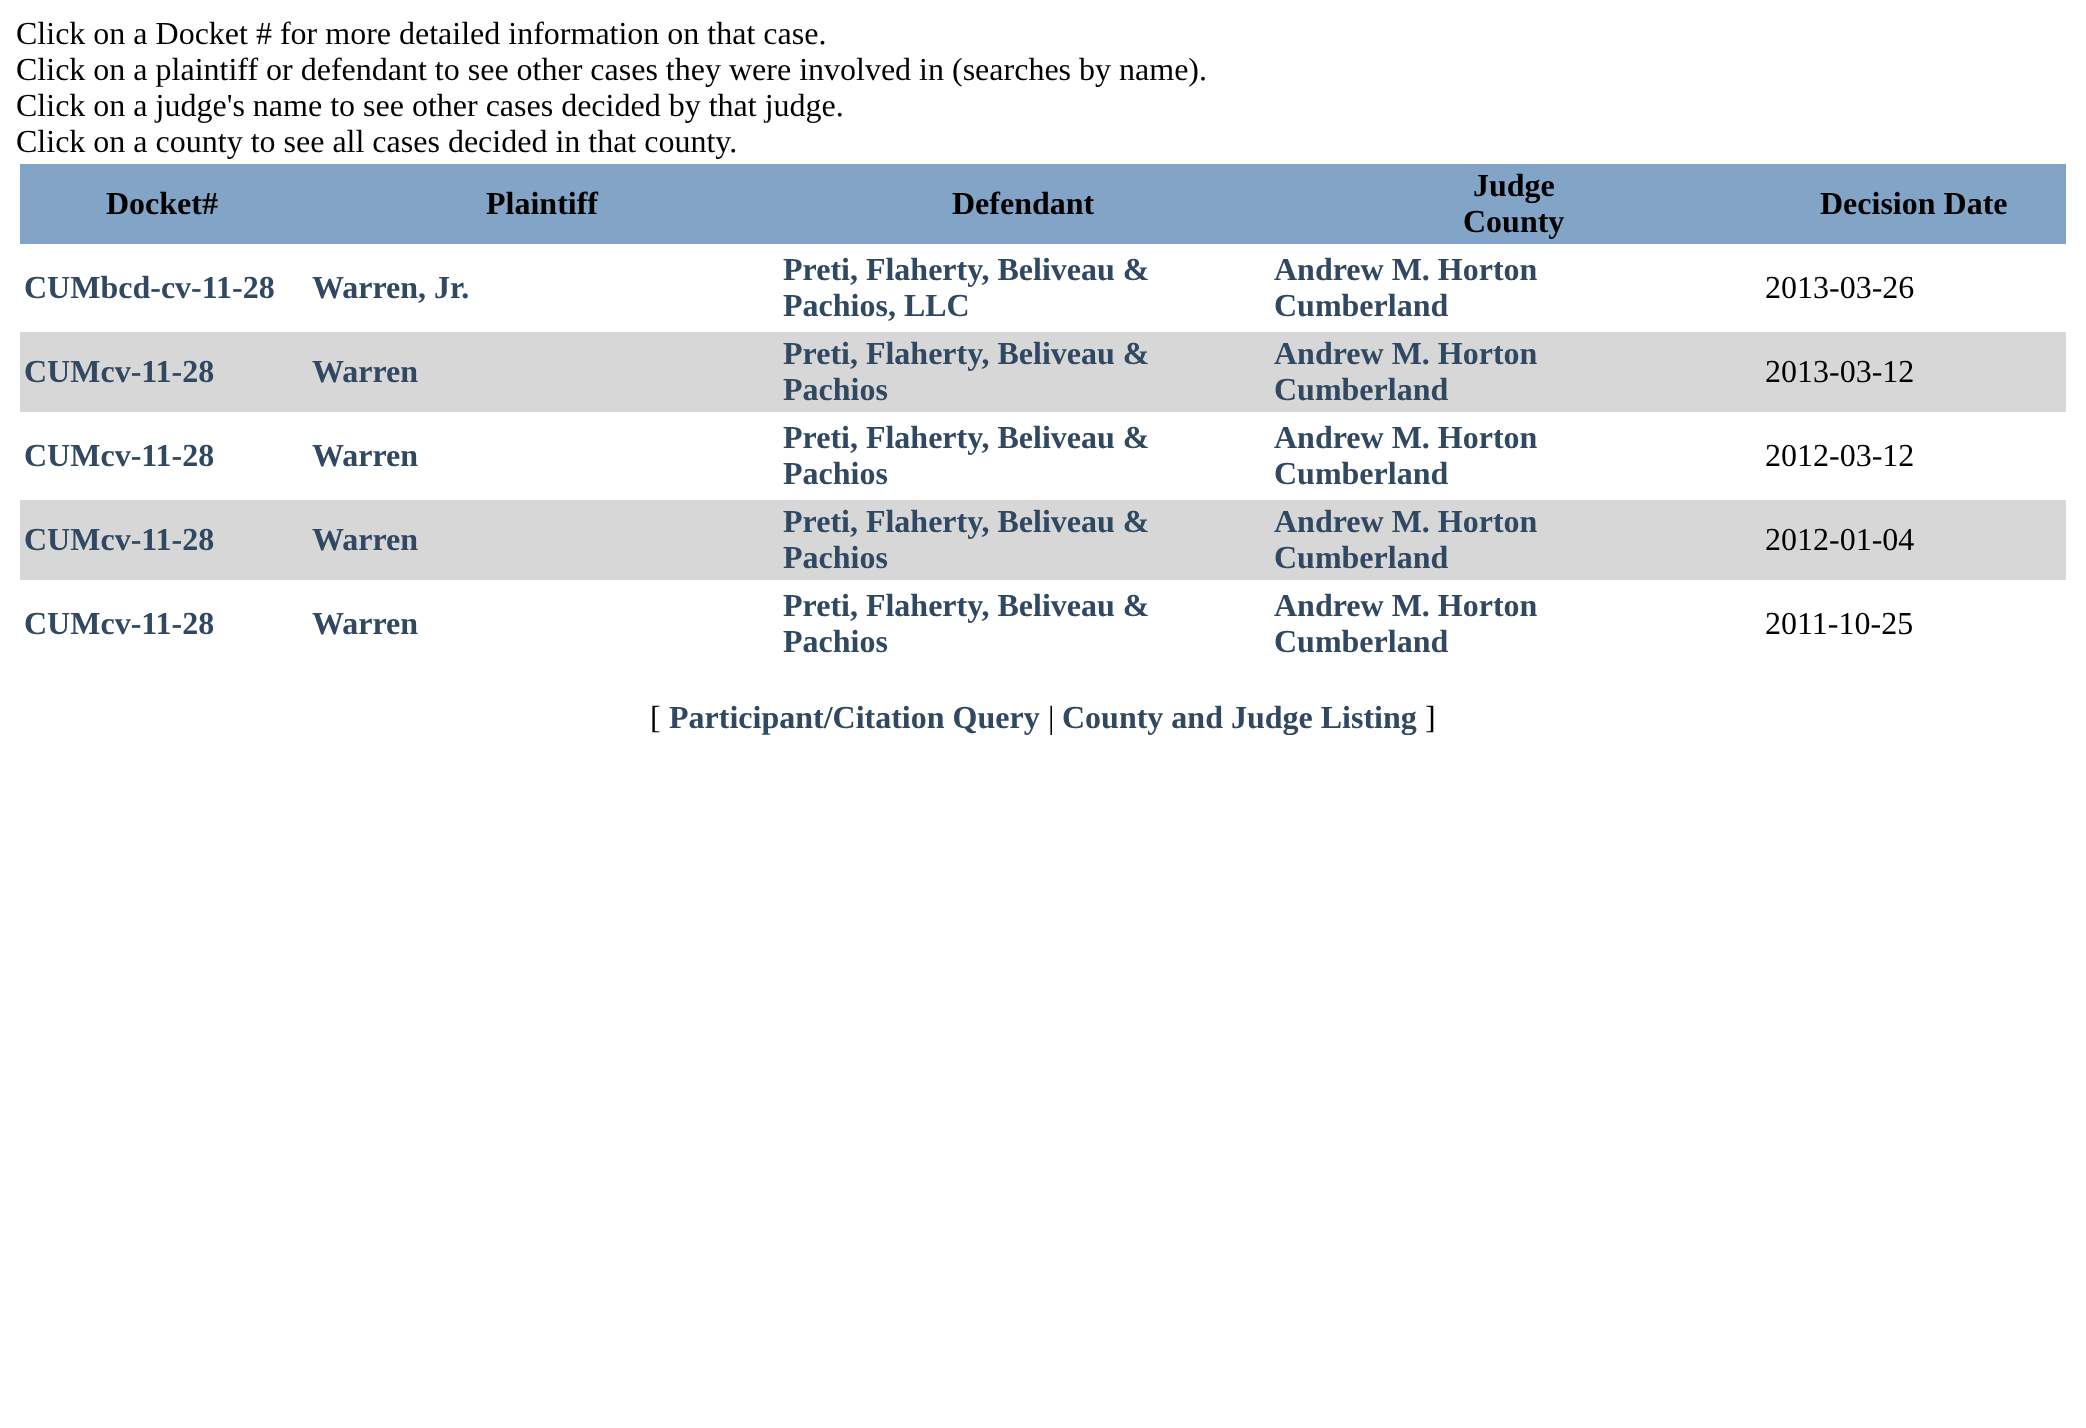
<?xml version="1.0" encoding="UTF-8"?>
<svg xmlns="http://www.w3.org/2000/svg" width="2086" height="1428">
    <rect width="100%" height="100%" fill="#FFFFFF"/>
    <text font-family="Liberation Serif" font-size="32" fill="#000000">
        <tspan x="16" y="44">Click on a Docket # for more detailed information on that case.</tspan>
        <tspan x="16" y="80">Click on a plaintiff or defendant to see other cases they were involved in (searches by name).</tspan>
        <tspan x="16" y="116">Click on a judge's name to see other cases decided by that judge.</tspan>
        <tspan x="16" y="152">Click on a county to see all cases decided in that county.</tspan>
    </text>
    <rect x="20" y="164" width="2046" height="80" fill="#82A4C6"/>
    <text x="106" y="214" font-family="Liberation Serif" font-size="32" font-weight="700" fill="#000000">Docket#</text>
    <text x="486" y="214" font-family="Liberation Serif" font-size="32" font-weight="700" fill="#000000">Plaintiff</text>
    <text x="952" y="214" font-family="Liberation Serif" font-size="32" font-weight="700" fill="#000000">Defendant</text>
    <text x="1473" y="196" font-family="Liberation Serif" font-size="32" font-weight="700" fill="#000000">Judge</text>
    <text x="1463" y="232" font-family="Liberation Serif" font-size="32" font-weight="700" fill="#000000">County</text>
    <text x="1820" y="214" font-family="Liberation Serif" font-size="32" font-weight="700" fill="#000000">Decision Date</text>
    <text x="24" y="298" font-family="Liberation Serif" font-size="32" font-weight="700" fill="#304861">CUMbcd-cv-11-28</text>
    <text x="312" y="298" font-family="Liberation Serif" font-size="32" font-weight="700" fill="#304861">Warren, Jr.</text>
    <text font-family="Liberation Serif" font-size="32" font-weight="700" fill="#304861">
        <tspan x="783" y="280">Preti, Flaherty, Beliveau &amp;</tspan>
        <tspan x="783" y="316">Pachios, LLC</tspan>
    </text>
    <text font-family="Liberation Serif" font-size="32" font-weight="700" fill="#304861">
        <tspan x="1274" y="280">Andrew M. Horton</tspan>
        <tspan x="1274" y="316">Cumberland</tspan>
    </text>
    <text x="1765" y="298" font-family="Liberation Serif" font-size="32" fill="#000000">2013-03-26</text>
    <rect x="20" y="332" width="2046" height="80" fill="#D7D7D7"/>
    <text x="24" y="382" font-family="Liberation Serif" font-size="32" font-weight="700" fill="#304861">CUMcv-11-28</text>
    <text x="312" y="382" font-family="Liberation Serif" font-size="32" font-weight="700" fill="#304861">Warren</text>
    <text font-family="Liberation Serif" font-size="32" font-weight="700" fill="#304861">
        <tspan x="783" y="364">Preti, Flaherty, Beliveau &amp;</tspan>
        <tspan x="783" y="400">Pachios</tspan>
    </text>
    <text font-family="Liberation Serif" font-size="32" font-weight="700" fill="#304861">
        <tspan x="1274" y="364">Andrew M. Horton</tspan>
        <tspan x="1274" y="400">Cumberland</tspan>
    </text>
    <text x="1765" y="382" font-family="Liberation Serif" font-size="32" fill="#000000">2013-03-12</text>
    <text x="24" y="466" font-family="Liberation Serif" font-size="32" font-weight="700" fill="#304861">CUMcv-11-28</text>
    <text x="312" y="466" font-family="Liberation Serif" font-size="32" font-weight="700" fill="#304861">Warren</text>
    <text font-family="Liberation Serif" font-size="32" font-weight="700" fill="#304861">
        <tspan x="783" y="448">Preti, Flaherty, Beliveau &amp;</tspan>
        <tspan x="783" y="484">Pachios</tspan>
    </text>
    <text font-family="Liberation Serif" font-size="32" font-weight="700" fill="#304861">
        <tspan x="1274" y="448">Andrew M. Horton</tspan>
        <tspan x="1274" y="484">Cumberland</tspan>
    </text>
    <text x="1765" y="466" font-family="Liberation Serif" font-size="32" fill="#000000">2012-03-12</text>
    <rect x="20" y="500" width="2046" height="80" fill="#D7D7D7"/>
    <text x="24" y="550" font-family="Liberation Serif" font-size="32" font-weight="700" fill="#304861">CUMcv-11-28</text>
    <text x="312" y="550" font-family="Liberation Serif" font-size="32" font-weight="700" fill="#304861">Warren</text>
    <text font-family="Liberation Serif" font-size="32" font-weight="700" fill="#304861">
        <tspan x="783" y="532">Preti, Flaherty, Beliveau &amp;</tspan>
        <tspan x="783" y="568">Pachios</tspan>
    </text>
    <text font-family="Liberation Serif" font-size="32" font-weight="700" fill="#304861">
        <tspan x="1274" y="532">Andrew M. Horton</tspan>
        <tspan x="1274" y="568">Cumberland</tspan>
    </text>
    <text x="1765" y="550" font-family="Liberation Serif" font-size="32" fill="#000000">2012-01-04</text>
    <text x="24" y="634" font-family="Liberation Serif" font-size="32" font-weight="700" fill="#304861">CUMcv-11-28</text>
    <text x="312" y="634" font-family="Liberation Serif" font-size="32" font-weight="700" fill="#304861">Warren</text>
    <text font-family="Liberation Serif" font-size="32" font-weight="700" fill="#304861">
        <tspan x="783" y="616">Preti, Flaherty, Beliveau &amp;</tspan>
        <tspan x="783" y="652">Pachios</tspan>
    </text>
    <text font-family="Liberation Serif" font-size="32" font-weight="700" fill="#304861">
        <tspan x="1274" y="616">Andrew M. Horton</tspan>
        <tspan x="1274" y="652">Cumberland</tspan>
    </text>
    <text x="1765" y="634" font-family="Liberation Serif" font-size="32" fill="#000000">2011-10-25</text>
    <text x="650" y="728" font-family="Liberation Serif" font-size="32" fill="#000000">[</text>
    <text x="669" y="728" font-family="Liberation Serif" font-size="32" font-weight="700" fill="#304861">Participant/Citation Query</text>
    <text x="1048" y="728" font-family="Liberation Serif" font-size="32" fill="#000000">|</text>
    <text x="1062" y="728" font-family="Liberation Serif" font-size="32" font-weight="700" fill="#304861">County and Judge Listing</text>
    <text x="1425" y="728" font-family="Liberation Serif" font-size="32" fill="#000000">]</text>
</svg>
